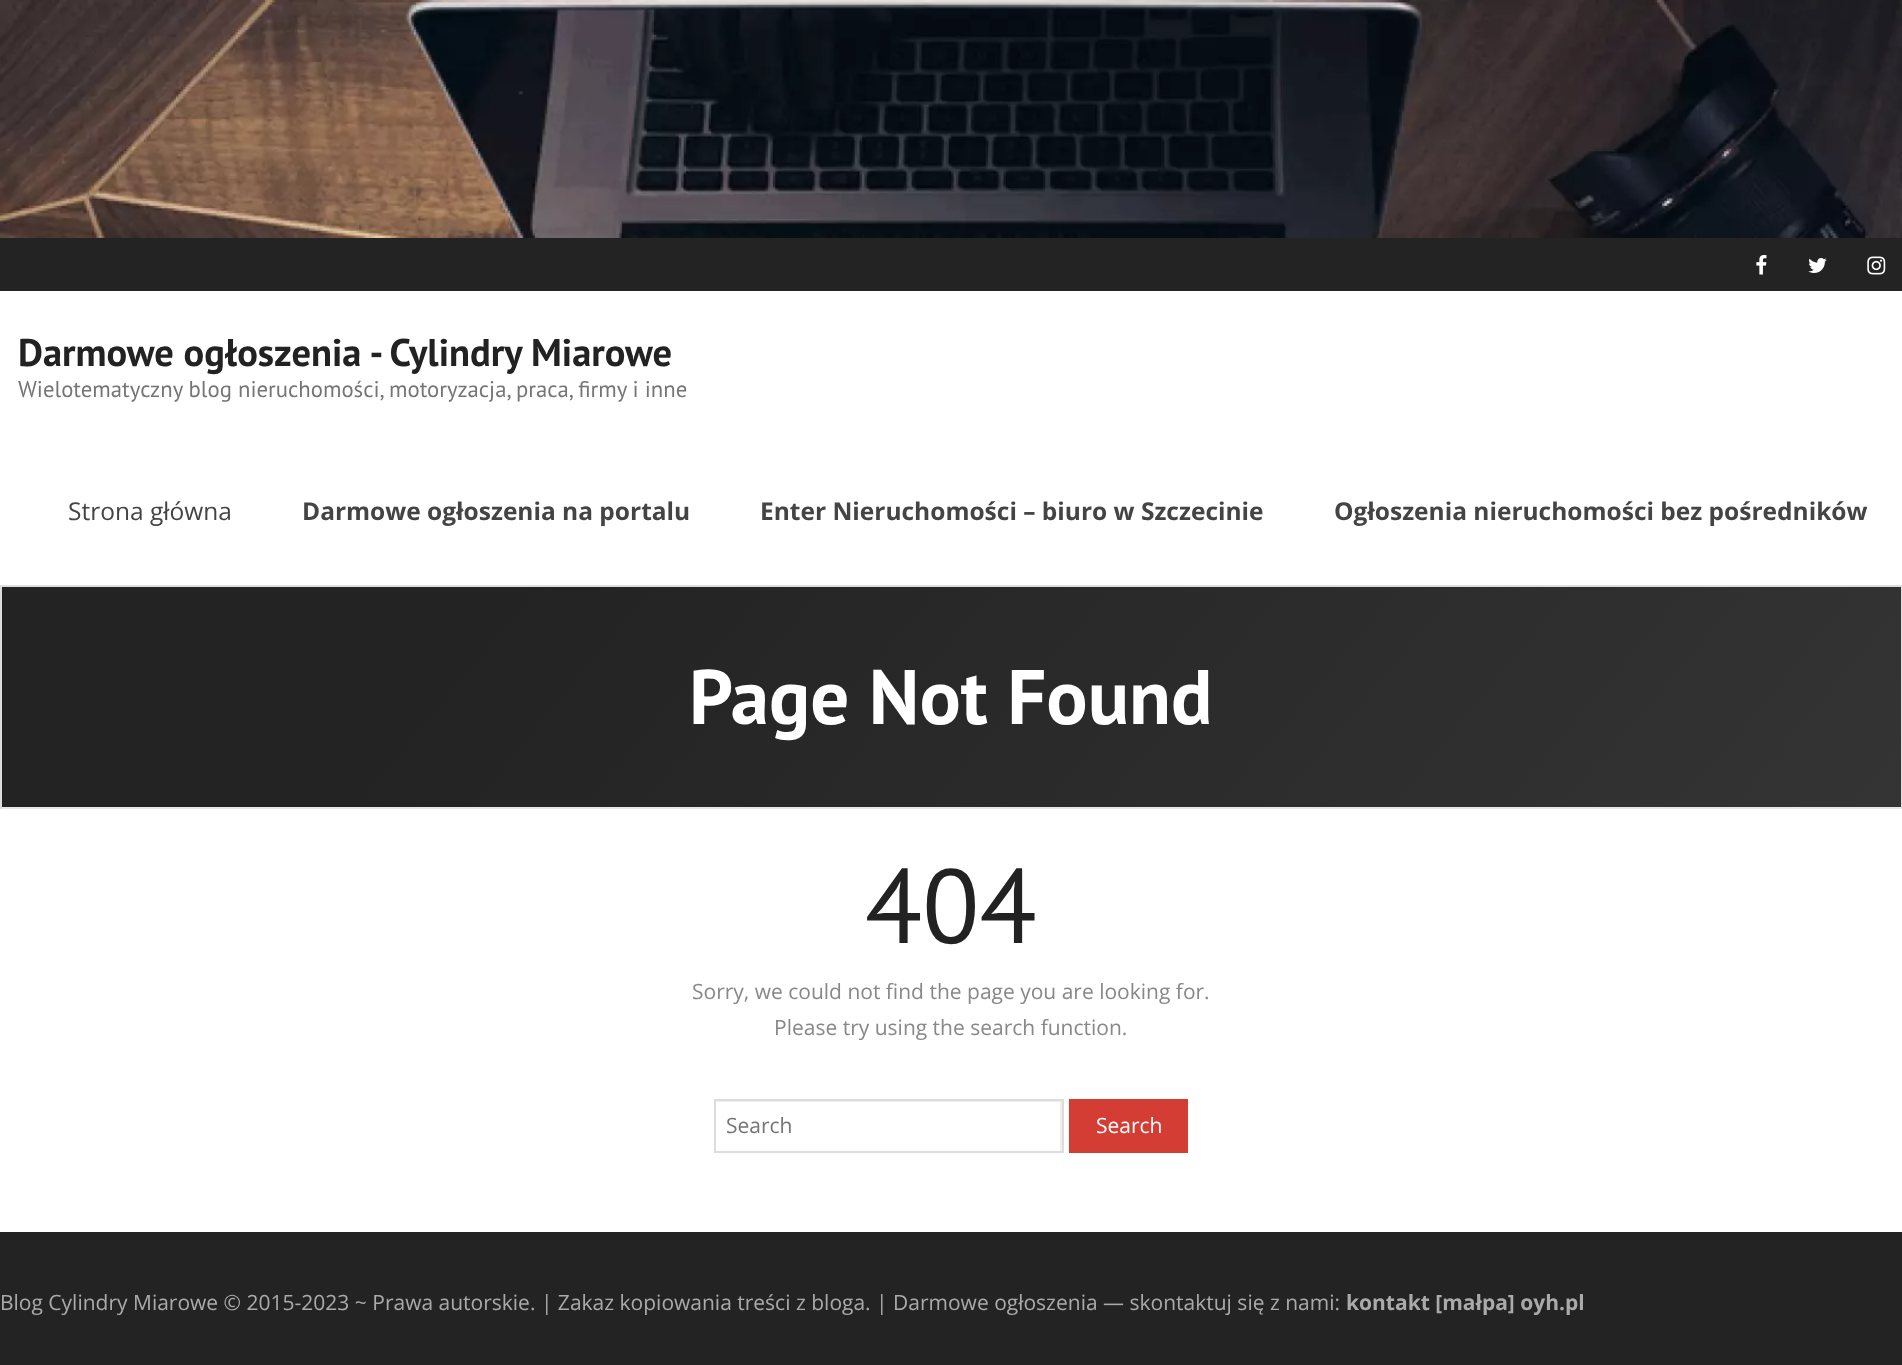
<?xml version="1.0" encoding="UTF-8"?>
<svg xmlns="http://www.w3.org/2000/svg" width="1902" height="1365">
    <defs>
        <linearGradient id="g1" gradientUnits="userSpaceOnUse" x1="340" y1="183" x2="1563" y2="1210"><stop offset="0.25" stop-color="#232323"/><stop offset="1" stop-color="#343434"/></linearGradient>
        <clipPath id="clip1"><rect x="716" y="1101" width="346" height="51"/></clipPath>
    </defs>
    <rect width="100%" height="100%" fill="#FFFFFF"/>
    <rect x="1901" y="586" width="1" height="223" fill="#DDDDDD"/>
    <rect x="0" y="807" width="1902" height="2" fill="#E7E7E7"/>
    <rect x="0" y="586" width="2" height="223" fill="#DDDDDD"/>
    <rect x="0" y="585" width="1902" height="2" fill="#DDDDDD"/>
    <image x="0" y="0" width="1902" height="238" href="img_01.png"/>
    <rect x="0" y="238" width="1902" height="53" fill="#232323"/>
    <image x="1756" y="255" width="11" height="20" href="img_02.png"/>
    <image x="1808" y="258" width="19" height="15" href="img_03.png"/>
    <image x="1867" y="256" width="19" height="19" href="img_04.png"/>
    <text x="18" y="366" font-family="PT Sans" font-size="38.5" font-weight="700" fill="#222222">Darmowe ogłoszenia - Cylindry Miarowe</text>
    <text x="18" y="397" font-family="PT Sans" font-size="22.75" fill="#757575">Wielotematyczny blog nieruchomości, motoryzacja, praca, firmy i inne</text>
    <text x="68" y="520" font-family="Open Sans" font-size="24.5" fill="#444444">Strona główna</text>
    <text x="302" y="520" font-family="Open Sans" font-size="24.5" font-weight="700" fill="#444444">Darmowe ogłoszenia na portalu</text>
    <text x="760" y="520" font-family="Open Sans" font-size="24.5" font-weight="700" fill="#444444">Enter Nieruchomości – biuro w Szczecinie</text>
    <text x="1334" y="520" font-family="Open Sans" font-size="24.5" font-weight="700" fill="#444444">Ogłoszenia nieruchomości bez pośredników</text>
    <rect x="2" y="587" width="1899" height="220" fill="url(#g1)"/>
    <text x="689" y="724" font-family="PT Sans" font-size="77" font-weight="700" fill="#FFFFFF">Page Not Found</text>
    <text x="865" y="943" font-family="PT Sans" font-size="105" fill="#222222">404</text>
    <text x="692" y="999" font-family="Open Sans" font-size="21" fill="#888888">Sorry, we could not find the page you are looking for.</text>
    <text x="774" y="1035" font-family="Open Sans" font-size="21" fill="#888888">Please try using the search function.</text>
    <g clip-path="url(#clip1)">
        <path d="M 542 928 H 1236 V 1325 H 542 Z M 714 1102 H 1060 V 1153 H 714 Z" fill="#EEEEEE" fill-rule="evenodd"/>
    </g>
    <rect x="715" y="1100" width="348" height="52" fill="none" stroke="#DDDDDD" stroke-width="2"/>
    <text x="726" y="1133" font-family="Open Sans" font-size="21" fill="#757575">Search</text>
    <rect x="1069" y="1099" width="119" height="54" fill="#D33D33"/>
    <text x="1096" y="1133" font-family="Open Sans" font-size="21" fill="#FFFFFF">Search</text>
    <rect x="0" y="1232" width="1902" height="133" fill="#232323"/>
    <text x="0" y="1310" font-family="Open Sans" font-size="21" fill="#AAAAAA">Blog Cylindry Miarowe © 2015-2023 ~ Prawa autorskie. | Zakaz kopiowania treści z bloga. | Darmowe ogłoszenia — skontaktuj się z nami:</text>
    <text x="1346" y="1310" font-family="Open Sans" font-size="21" font-weight="700" fill="#AAAAAA">kontakt [małpa] oyh.pl</text>
</svg>
